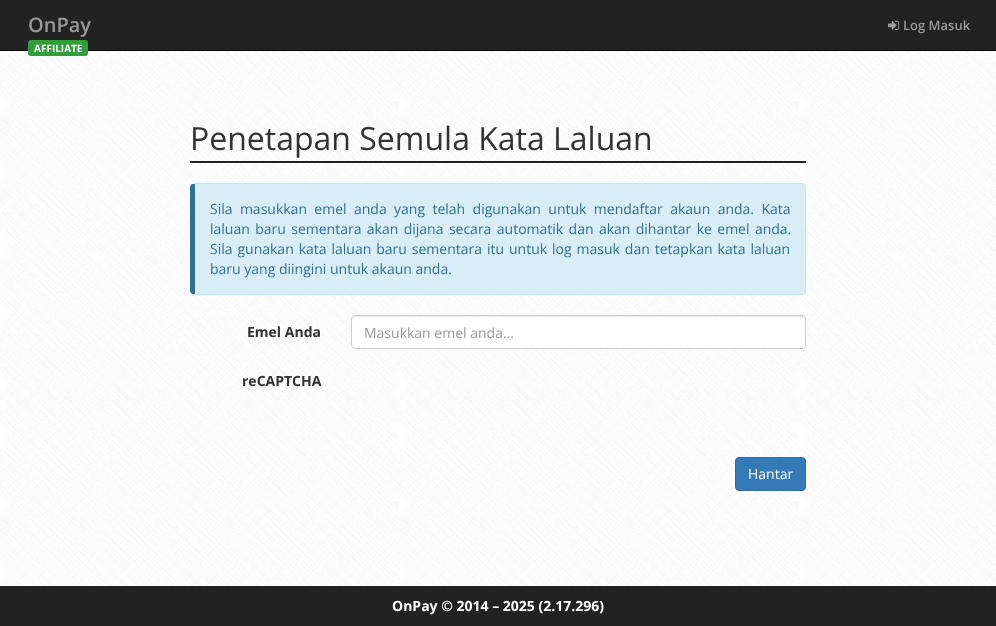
<?xml version="1.0" encoding="UTF-8"?>
<svg xmlns="http://www.w3.org/2000/svg" width="996" height="626">
    <rect width="100%" height="100%" fill="#FFFFFF"/>
    <image x="0" y="51" width="996" height="535" href="img_01.png"/>
    <rect x="0" y="0" width="996" height="50" fill="#222222"/>
    <rect x="0" y="50" width="996" height="1" fill="#080808"/>
    <text x="28" y="32" font-family="Open Sans" font-size="20" font-weight="600" fill="#999999">OnPay</text>
    <rect x="28" y="40" width="60" height="16" rx="3" fill="#309F39"/>
    <text x="34" y="52" font-family="Open Sans" font-size="10" font-weight="700" fill="#FFFFFF">AFFILIATE</text>
    <image x="888" y="20" width="12" height="10" href="img_02.png"/>
    <text x="903" y="30" font-family="Open Sans" font-size="13" font-weight="600" fill="#999999">Log Masuk</text>
    <rect x="190" y="161" width="616" height="2" fill="#222222"/>
    <text x="190" y="150" font-family="Open Sans" font-size="32" fill="#333333">Penetapan Semula Kata Laluan</text>
    <path d="M 195 184 H 801 C 803 184 805 186 805 188 V 290 C 805 292 803 294 801 294 H 195 Z" fill="#D9EDF7"/>
    <path d="M 195 183 L 193 184 H 195 H 801 C 802 184 803 184 804 185 L 805 184 C 804 184 802 183 801 183 Z" fill="#BCE8F1"/>
    <path d="M 806 290 V 187 L 805 184 L 804 185 L 805 188 V 290 L 804 293 L 805 294 C 806 293 806 292 806 290 Z" fill="#BCE8F1"/>
    <path d="M 195 295 H 801 C 802 295 804 294 805 294 L 804 293 C 803 294 802 294 801 294 H 195 H 193 Z" fill="#BCE8F1"/>
    <path d="M 195 184 H 193 C 191 184 190 186 190 188 V 290 C 190 292 191 294 193 294 H 195 Z" fill="#31708F"/>
    <text font-family="Open Sans" font-size="14" fill="#31708F">
        <tspan x="210" y="214" word-spacing="3.75">Sila masukkan emel anda yang telah digunakan untuk mendaftar akaun anda. Kata</tspan>
        <tspan x="210" y="234" word-spacing="1.75">laluan baru sementara akan dijana secara automatik dan akan dihantar ke emel anda.</tspan>
        <tspan x="210" y="254" word-spacing="1.3">Sila gunakan kata laluan baru sementara itu untuk log masuk dan tetapkan kata laluan</tspan>
        <tspan x="210" y="274">baru yang diingini untuk akaun anda.</tspan>
    </text>
    <text x="247" y="337" font-family="Open Sans" font-size="14" font-weight="700" fill="#333333">Emel Anda</text>
    <rect x="351" y="315" width="455" height="34" rx="4" fill="#FFFFFF"/>
    <path d="M 355 317 H 802 C 804 317 805 318 805 320 V 318 L 803 316 H 354 C 352 317 352 318 352 320 C 352 318 353 317 355 317 Z" fill="#ECECEC"/>
    <rect x="351.5" y="315.5" width="454" height="33" rx="3.5" fill="none" stroke="#CCCCCC"/>
    <text x="364" y="338" font-family="Open Sans" font-size="14" fill="#999999">Masukkan emel anda...</text>
    <text x="242" y="386" font-family="Open Sans" font-size="14" font-weight="700" fill="#333333">reCAPTCHA</text>
    <rect x="735.5" y="457.5" width="70" height="33" rx="3.5" fill="#337AB7" stroke="#2E6DA4"/>
    <text x="748" y="479" font-family="Open Sans" font-size="14" fill="#FFFFFF">Hantar</text>
    <rect x="0" y="586" width="996" height="40" fill="#222222"/>
    <text x="392" y="611" font-family="Open Sans" font-size="14" font-weight="700" fill="#FFFFFF">OnPay © 2014 – 2025 (2.17.296)</text>
</svg>
